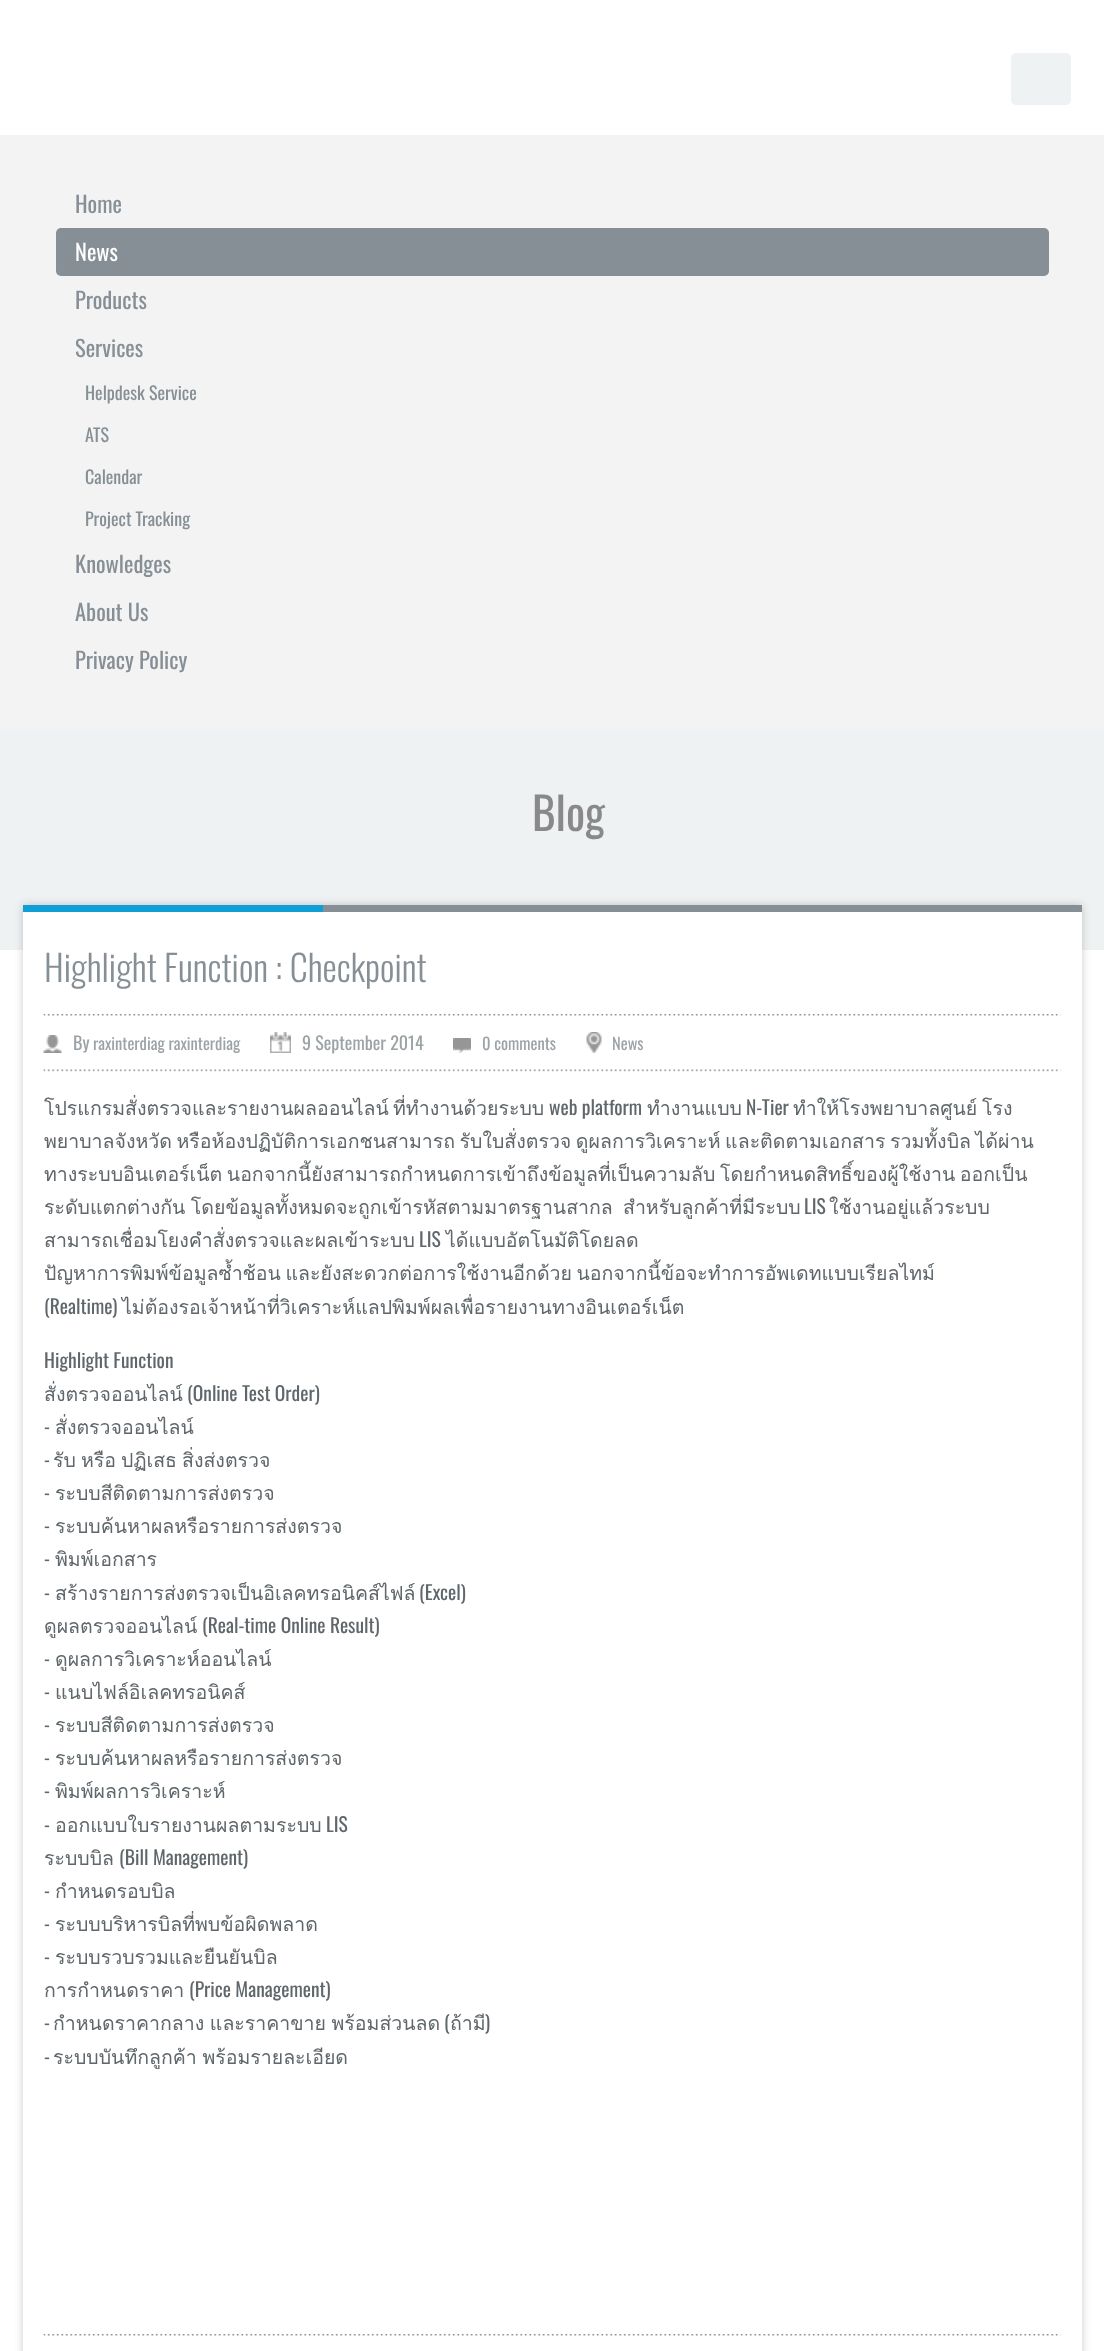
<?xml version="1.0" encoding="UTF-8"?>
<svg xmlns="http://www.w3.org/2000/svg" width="1104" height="2351">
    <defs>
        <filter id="blur1" x="-50%" y="-200%" width="200%" height="500%"><feGaussianBlur stdDeviation="4"/></filter>
        <clipPath id="clip1"><rect x="44" y="1089" width="1017" height="1250"/></clipPath>
    </defs>
    <rect width="100%" height="100%" fill="#FFFFFF"/>
    <rect x="1011" y="53" width="60" height="52" rx="5" fill="#EEF2F2"/>
    <rect x="0" y="135" width="1104" height="594" fill="#F3F3F3"/>
    <text x="75" y="213" font-family="Oswald" font-size="22.5" fill="#858F95">Home</text>
    <rect x="56" y="228" width="993" height="48" rx="5" fill="#858F95"/>
    <text x="75" y="261" font-family="Oswald" font-size="22.5" fill="#FFFFFF">News</text>
    <text x="75" y="309" font-family="Oswald" font-size="22.5" fill="#858F95">Products</text>
    <text x="75" y="357" font-family="Oswald" font-size="22.5" fill="#858F95">Services</text>
    <text x="85" y="400" font-family="Oswald" font-size="18" fill="#858F95">Helpdesk Service</text>
    <text x="85" y="442" font-family="Oswald" font-size="18" fill="#858F95">ATS</text>
    <text x="85" y="484" font-family="Oswald" font-size="18" fill="#858F95">Calendar</text>
    <text x="85" y="526" font-family="Oswald" font-size="18" fill="#858F95">Project Tracking</text>
    <text x="75" y="573" font-family="Oswald" font-size="22.5" fill="#858F95">Knowledges</text>
    <text x="75" y="621" font-family="Oswald" font-size="22.5" fill="#858F95">About Us</text>
    <text x="75" y="669" font-family="Oswald" font-size="22.5" fill="#858F95">Privacy Policy</text>
    <rect x="0" y="729" width="1104" height="221" fill="#EEF2F2"/>
    <text x="532" y="831" font-family="Oswald" font-size="45" fill="#898989">Blog</text>
    <rect x="23" y="905" width="1059" height="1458" fill="#000000" fill-opacity="0.2" filter="url(#blur1)"/>
    <rect x="23" y="912" width="1059" height="1439" fill="#FFFFFF"/>
    <rect x="323" y="905" width="759" height="7" fill="#858F95"/>
    <rect x="23" y="905" width="300" height="7" fill="#0F9ED5"/>
    <text x="44" y="982" font-family="Oswald" font-size="36" font-weight="300" fill="#858F95">Highlight Function : Checkpoint</text>
    <image x="43" y="1014" width="1018" height="58" href="img_01.png"/>
    <image x="43" y="1035" width="19" height="18" href="img_02.png"/>
    <text x="73" y="1050" font-family="Oswald" font-size="18" fill="#9CA3A6">By</text>
    <text x="93" y="1050" font-family="Oswald" font-size="16.5" fill="#9CA3A6">raxinterdiag raxinterdiag</text>
    <image x="270" y="1032" width="21" height="21" href="img_03.png"/>
    <text x="302" y="1050" font-family="Oswald" font-size="18" fill="#9CA3A6">9 September 2014</text>
    <image x="453" y="1038" width="18" height="15" href="img_04.png"/>
    <text x="482" y="1050" font-family="Oswald" font-size="16.5" fill="#9CA3A6">0 comments</text>
    <image x="586" y="1032" width="16" height="21" href="img_05.png"/>
    <text x="612" y="1050" font-family="Oswald" font-size="16.5" fill="#9CA3A6">News</text>
    <image x="43" y="2334" width="1018" height="2" href="img_06.png"/>
    <text x="44" y="1115" font-family="Loma" font-size="19.5" fill="#5F676B">โปรแกรมสั่งตรวจและรายงานผลออนไลน์</text>
    <text x="393" y="1115" font-family="Loma" font-size="19.5" fill="#5F676B">ที่ทำงานด้วยระบบ</text>
    <text x="549" y="1115" font-family="Oswald" font-size="19.5" fill="#5F676B">web platform</text>
    <text x="647" y="1115" font-family="Loma" font-size="19.5" fill="#5F676B">ทำงานแบบ</text>
    <text x="746" y="1115" font-family="Oswald" font-size="19.5" fill="#5F676B">N-Tier</text>
    <text x="793" y="1115" font-family="Loma" font-size="19.5" fill="#5F676B">ทำให้โรงพยาบาลศูนย์</text>
    <text x="982" y="1115" font-family="Loma" font-size="19.5" fill="#5F676B">โรง</text>
    <text font-family="Loma" font-size="19.5" fill="#5F676B">
        <tspan x="44" y="1148" word-spacing="-2">พยาบาลจังหวัด หรือห้องปฏิบัติการเอกชนสามารถ รับใบสั่งตรวจ ดูผลการวิเคราะห์ และติดตามเอกสาร รวมทั้งบิล ได้ผ่าน</tspan>
        <tspan x="44" y="1181" word-spacing="-2">ทางระบบอินเตอร์เน็ต นอกจากนี้ยังสามารถกำหนดการเข้าถึงข้อมูลที่เป็นความลับ โดยกำหนดสิทธิ์ของผู้ใช้งาน ออกเป็น</tspan>
        <tspan x="44" y="1214" word-spacing="-1">ระดับแตกต่างกัน โดยข้อมูลทั้งหมดจะถูกเข้ารหัสตามมาตรฐานสากล</tspan>
    </text>
    <text x="623" y="1214" font-family="Loma" font-size="19.5" fill="#5F676B">สำหรับลูกค้าที่มีระบบ</text>
    <text x="804" y="1214" font-family="Oswald" font-size="19.5" fill="#5F676B">LIS</text>
    <text x="829" y="1214" font-family="Loma" font-size="19.5" fill="#5F676B">ใช้งานอยู่แล้วระบบ</text>
    <text x="44" y="1247" font-family="Loma" font-size="19.5" fill="#5F676B">สามารถเชื่อมโยงคำสั่งตรวจและผลเข้าระบบ</text>
    <text x="419" y="1247" font-family="Oswald" font-size="19.5" fill="#5F676B">LIS</text>
    <text x="446" y="1247" font-family="Loma" font-size="19.5" fill="#5F676B">ได้แบบอัตโนมัติโดยลด</text>
    <g clip-path="url(#clip1)">
        <text x="44" y="1280" word-spacing="-2" font-family="Loma" font-size="19.5" fill="#5F676B">ปัญหาการพิมพ์ข้อมูลซ้ำช้อน และยังสะดวกต่อการใช้งานอีกด้วย นอกจากนี้ข้อจะทำการอัพเดทแบบเรียลไทม์</text>
    </g>
    <text x="44" y="1314" font-family="Oswald" font-size="19.5" fill="#5F676B">(Realtime)</text>
    <text x="122" y="1314" font-family="Loma" font-size="19.5" fill="#5F676B">ไม่ต้องรอเจ้าหน้าที่วิเคราะห์แลปพิมพ์ผลเพื่อรายงานทางอินเตอร์เน็ต</text>
    <text x="44" y="1368" font-family="Oswald" font-size="19.5" fill="#5F676B">Highlight Function</text>
    <g clip-path="url(#clip1)">
        <text x="44" y="1401" font-family="Loma" font-size="19.5" fill="#5F676B">สั่งตรวจออนไลน์</text>
    </g>
    <text x="187" y="1401" font-family="Oswald" font-size="19.5" fill="#5F676B">(Online Test Order)</text>
    <text x="44" y="1434" font-family="Oswald" font-size="19.5" fill="#5F676B">-</text>
    <text x="55" y="1434" font-family="Loma" font-size="19.5" fill="#5F676B">สั่งตรวจออนไลน์</text>
    <text x="44" y="1467" font-family="Oswald" font-size="19.5" fill="#5F676B">-</text>
    <text x="53" y="1467" word-spacing="-1.5" font-family="Loma" font-size="19.5" fill="#5F676B">รับ หรือ ปฏิเสธ สิ่งส่งตรวจ</text>
    <text x="44" y="1500" font-family="Oswald" font-size="19.5" fill="#5F676B">-</text>
    <text x="55" y="1500" font-family="Loma" font-size="19.5" fill="#5F676B">ระบบสีติดตามการส่งตรวจ</text>
    <text x="44" y="1533" font-family="Oswald" font-size="19.5" fill="#5F676B">-</text>
    <text x="55" y="1533" font-family="Loma" font-size="19.5" fill="#5F676B">ระบบค้นหาผลหรือรายการส่งตรวจ</text>
    <text x="44" y="1566" font-family="Oswald" font-size="19.5" fill="#5F676B">-</text>
    <text x="55" y="1566" font-family="Loma" font-size="19.5" fill="#5F676B">พิมพ์เอกสาร</text>
    <text x="44" y="1600" font-family="Oswald" font-size="19.5" fill="#5F676B">-</text>
    <text x="55" y="1600" font-family="Loma" font-size="19.5" fill="#5F676B">สร้างรายการส่งตรวจเป็นอิเลคทรอนิคส์ไฟล์</text>
    <text x="419" y="1600" font-family="Oswald" font-size="19.5" fill="#5F676B">(Excel)</text>
    <g clip-path="url(#clip1)">
        <text x="44" y="1633" font-family="Loma" font-size="19.5" fill="#5F676B">ดูผลตรวจออนไลน์</text>
    </g>
    <text x="202" y="1633" font-family="Oswald" font-size="19.5" fill="#5F676B">(Real-time Online Result)</text>
    <text x="44" y="1666" font-family="Oswald" font-size="19.5" fill="#5F676B">-</text>
    <text x="55" y="1666" font-family="Loma" font-size="19.5" fill="#5F676B">ดูผลการวิเคราะห์ออนไลน์</text>
    <text x="44" y="1699" font-family="Oswald" font-size="19.5" fill="#5F676B">-</text>
    <text x="55" y="1699" font-family="Loma" font-size="19.5" fill="#5F676B">แนบไฟล์อิเลคทรอนิคส์</text>
    <text x="44" y="1732" font-family="Oswald" font-size="19.5" fill="#5F676B">-</text>
    <text x="55" y="1732" font-family="Loma" font-size="19.5" fill="#5F676B">ระบบสีติดตามการส่งตรวจ</text>
    <text x="44" y="1765" font-family="Oswald" font-size="19.5" fill="#5F676B">-</text>
    <text x="55" y="1765" font-family="Loma" font-size="19.5" fill="#5F676B">ระบบค้นหาผลหรือรายการส่งตรวจ</text>
    <text x="44" y="1798" font-family="Oswald" font-size="19.5" fill="#5F676B">-</text>
    <text x="55" y="1798" font-family="Loma" font-size="19.5" fill="#5F676B">พิมพ์ผลการวิเคราะห์</text>
    <text x="44" y="1832" font-family="Oswald" font-size="19.5" fill="#5F676B">-</text>
    <text x="55" y="1832" font-family="Loma" font-size="19.5" fill="#5F676B">ออกแบบใบรายงานผลตามระบบ</text>
    <text x="326" y="1832" font-family="Oswald" font-size="19.5" fill="#5F676B">LIS</text>
    <text x="44" y="1865" font-family="Loma" font-size="19.5" fill="#5F676B">ระบบบิล</text>
    <text x="119" y="1865" font-family="Oswald" font-size="19.5" fill="#5F676B">(Bill Management)</text>
    <text x="44" y="1898" font-family="Oswald" font-size="19.5" fill="#5F676B">-</text>
    <text x="55" y="1898" font-family="Loma" font-size="19.5" fill="#5F676B">กำหนดรอบบิล</text>
    <text x="44" y="1931" font-family="Oswald" font-size="19.5" fill="#5F676B">-</text>
    <text x="55" y="1931" font-family="Loma" font-size="19.5" fill="#5F676B">ระบบบริหารบิลที่พบข้อผิดพลาด</text>
    <text x="44" y="1964" font-family="Oswald" font-size="19.5" fill="#5F676B">-</text>
    <text x="55" y="1964" font-family="Loma" font-size="19.5" fill="#5F676B">ระบบรวบรวมและยืนยันบิล</text>
    <text x="44" y="1997" font-family="Loma" font-size="19.5" fill="#5F676B">การกำหนดราคา</text>
    <text x="189" y="1997" font-family="Oswald" font-size="19.5" fill="#5F676B">(Price Management)</text>
    <text x="44" y="2030" font-family="Oswald" font-size="19.5" fill="#5F676B">-</text>
    <text x="53" y="2030" word-spacing="-1" font-family="Loma" font-size="19.5" fill="#5F676B">กำหนดราคากลาง และราคาขาย พร้อมส่วนลด</text>
    <text x="444" y="2030" font-family="Oswald" font-size="19.5" fill="#5F676B">(</text>
    <text x="450" y="2030" font-family="Loma" font-size="19.5" fill="#5F676B">ถ้ามี</text>
    <text x="485" y="2030" font-family="Oswald" font-size="19.5" fill="#5F676B">)</text>
    <text x="44" y="2064" font-family="Oswald" font-size="19.5" fill="#5F676B">-</text>
    <text x="53" y="2064" word-spacing="-1" font-family="Loma" font-size="19.5" fill="#5F676B">ระบบบันทึกลูกค้า พร้อมรายละเอียด</text>
</svg>
